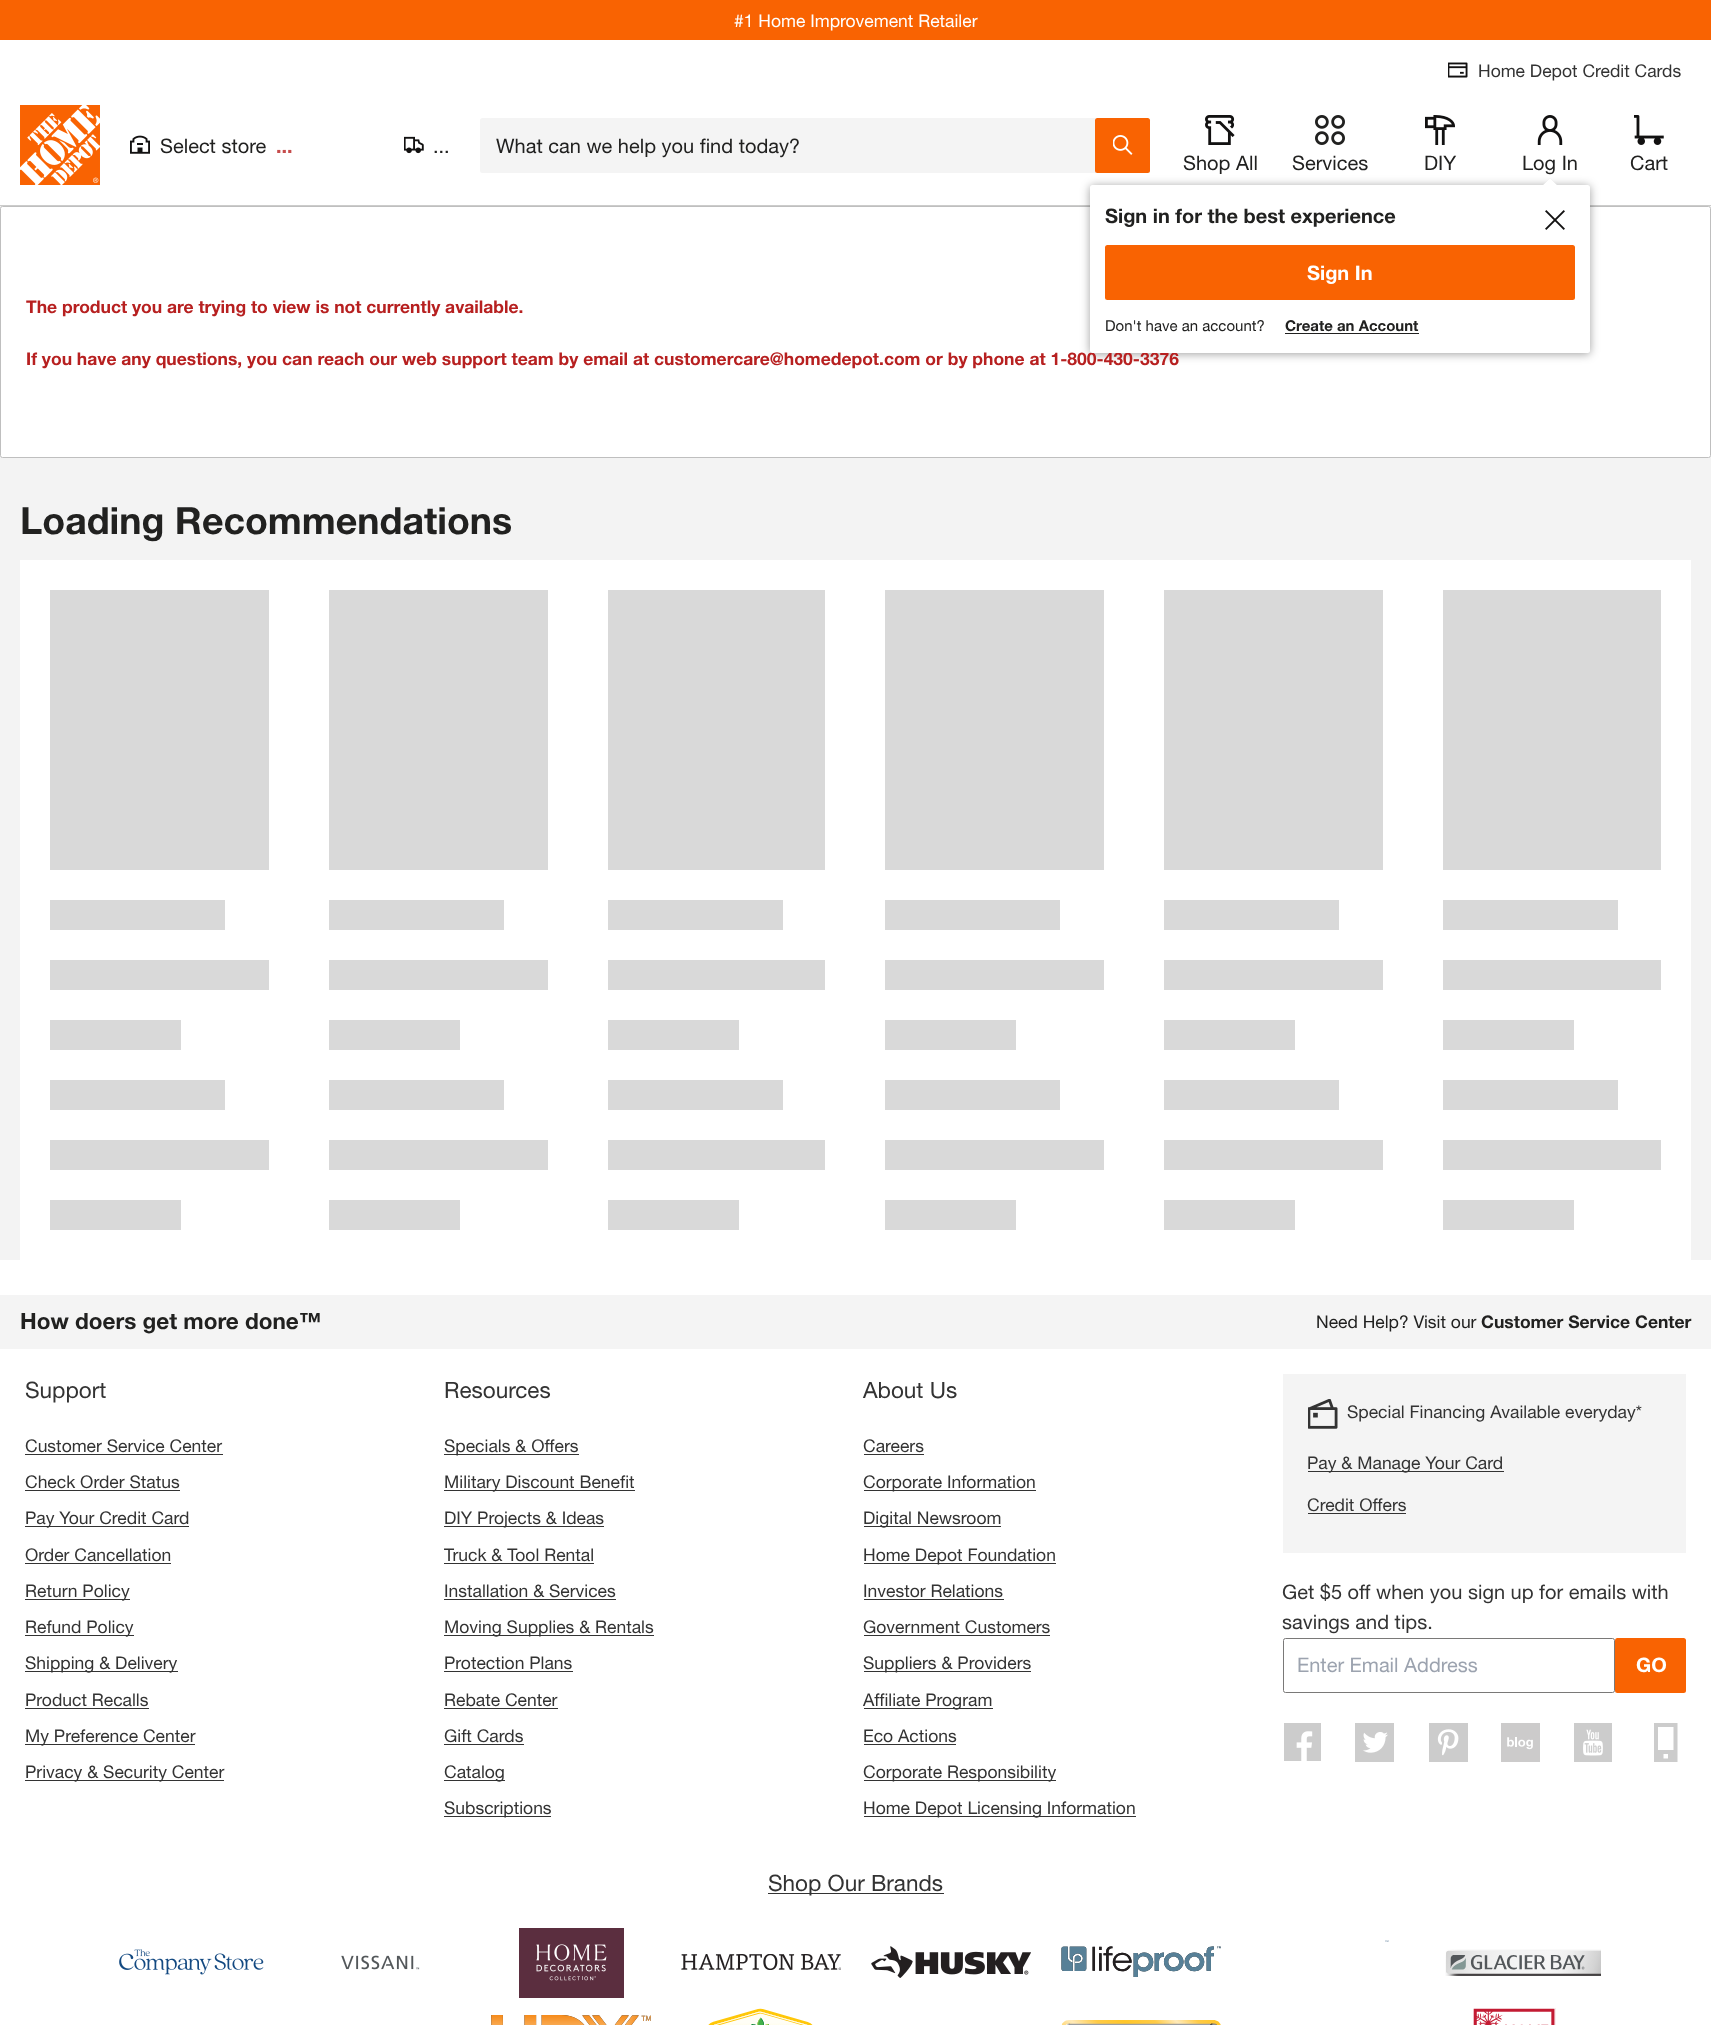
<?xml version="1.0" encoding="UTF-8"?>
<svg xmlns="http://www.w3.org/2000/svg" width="1711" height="2025">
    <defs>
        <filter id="blur1" x="-50%" y="-200%" width="200%" height="500%"><feGaussianBlur stdDeviation="5"/></filter>
        <clipPath id="clip1"><path d="M 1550 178 L 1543 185 H 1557 Z"/></clipPath>
    </defs>
    <rect width="100%" height="100%" fill="#FFFFFF"/>
    <rect x="0" y="0" width="1711" height="40" fill="#F96302"/>
    <text x="734" y="27" font-family="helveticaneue" font-size="17.5" fill="#FFFFFF">#1 Home Improvement Retailer</text>
    <rect x="0" y="205" width="1711" height="1" fill="#CCCCCB"/>
    <image x="1448" y="62" width="20" height="16" href="img_01.png"/>
    <text x="1478" y="77" font-family="helveticaneue" font-size="17.5" fill="#333333">Home Depot Credit Cards</text>
    <image x="20" y="105" width="80" height="80" href="img_02.png"/>
    <image x="130" y="135" width="20" height="19" href="img_03.png"/>
    <text x="160" y="153" font-family="helveticaneue" font-size="20" fill="#212120">Select store</text>
    <text x="276" y="153" font-family="'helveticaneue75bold'" font-size="20" font-weight="700" fill="#C64C4C">...</text>
    <image x="404" y="136" width="20" height="18" href="img_04.png"/>
    <text x="433" y="153" font-family="helveticaneue" font-size="20" fill="#212120">...</text>
    <rect x="480" y="118" width="670" height="55" rx="2.5" fill="#F4F4F4"/>
    <text x="496" y="153" font-family="helveticaneue" font-size="20" fill="#212120">What can we help you find today?</text>
    <rect x="1095" y="118" width="55" height="55" rx="2.5" fill="#F96302"/>
    <image x="1113" y="135" width="20" height="20" href="img_05.png"/>
    <image x="1205" y="115" width="30" height="30" href="img_06.png"/>
    <text x="1183" y="170" font-family="helveticaneue" font-size="20" fill="#212120">Shop All</text>
    <image x="1315" y="115" width="30" height="30" href="img_07.png"/>
    <text x="1292" y="170" font-family="helveticaneue" font-size="20" fill="#212120">Services</text>
    <image x="1425" y="115" width="30" height="30" href="img_08.png"/>
    <text x="1424" y="170" font-family="helveticaneue" font-size="20" fill="#212120">DIY</text>
    <image x="1537" y="115" width="26" height="30" href="img_09.png"/>
    <text x="1522" y="170" font-family="helveticaneue" font-size="20" fill="#212120">Log In</text>
    <rect x="0" y="206" width="1711" height="1054" fill="#F3F3F3"/>
    <rect x="0.5" y="206.5" width="1710" height="251" rx="2" fill="#FFFFFF" stroke="#BFBFBF"/>
    <rect x="1090" y="186" width="500" height="168" rx="2.5" fill="#000000" fill-opacity="0.38" filter="url(#blur1)"/>
    <text x="26" y="365" font-family="'helveticaneue75bold'" font-size="17.5" font-weight="700" fill="#B72020">If you have any questions, you can reach our web support team by email at customercare@homedepot.com or by phone at 1-800-430-3376</text>
    <rect x="1090" y="185" width="500" height="168" rx="2.5" fill="#FFFFFF"/>
    <g clip-path="url(#clip1)">
        <rect x="1545" y="181" width="10" height="10" fill="#000000" fill-opacity="0.38" filter="url(#blur1)"/>
    </g>
    <path d="M 1550 178 L 1543 185 H 1557 L 1551.5 179.5 Z" fill="#FFFFFF"/>
    <text x="1105" y="223" font-family="'helveticaneue75bold'" font-size="20" font-weight="700" fill="#212120">Sign in for the best experience</text>
    <image x="1545" y="210" width="20" height="20" href="img_10.png"/>
    <rect x="1105" y="245" width="470" height="55" rx="2.5" fill="#F96302"/>
    <text x="1307" y="280" font-family="'helveticaneue75bold'" font-size="20" font-weight="700" fill="#FFFFFF">Sign In</text>
    <text x="1105" y="331" font-family="helveticaneue" font-size="15" fill="#212120">Don't have an account?</text>
    <text x="1285" y="331" font-family="'helveticaneue75bold'" font-size="15" font-weight="700" fill="#212120">Create an Account</text>
    <rect x="1285" y="333" width="134" height="1" fill="#212120"/>
    <image x="1634" y="115" width="30" height="30" href="img_11.png"/>
    <text x="1630" y="170" font-family="helveticaneue" font-size="20" fill="#212120">Cart</text>
    <text x="26" y="313" font-family="'helveticaneue75bold'" font-size="17.5" font-weight="700" fill="#B72020">The product you are trying to view is not currently available.</text>
    <text x="20" y="534" font-family="'helveticaneue75bold'" font-size="37.5" font-weight="700" fill="#212120">Loading Recommendations</text>
    <rect x="20" y="560" width="1671" height="700" fill="#FFFFFF"/>
    <rect x="50" y="590" width="219" height="280" fill="#D9D9D9"/>
    <rect x="50" y="900" width="175" height="30" fill="#D9D9D9"/>
    <rect x="50" y="960" width="219" height="30" fill="#D9D9D9"/>
    <rect x="50" y="1020" width="131" height="30" fill="#D9D9D9"/>
    <rect x="50" y="1080" width="175" height="30" fill="#D9D9D9"/>
    <rect x="50" y="1140" width="219" height="30" fill="#D9D9D9"/>
    <rect x="50" y="1200" width="131" height="30" fill="#D9D9D9"/>
    <rect x="329" y="590" width="219" height="280" fill="#D9D9D9"/>
    <rect x="329" y="900" width="175" height="30" fill="#D9D9D9"/>
    <rect x="329" y="960" width="219" height="30" fill="#D9D9D9"/>
    <rect x="329" y="1020" width="131" height="30" fill="#D9D9D9"/>
    <rect x="329" y="1080" width="175" height="30" fill="#D9D9D9"/>
    <rect x="329" y="1140" width="219" height="30" fill="#D9D9D9"/>
    <rect x="329" y="1200" width="131" height="30" fill="#D9D9D9"/>
    <rect x="608" y="590" width="217" height="280" fill="#D9D9D9"/>
    <rect x="608" y="900" width="175" height="30" fill="#D9D9D9"/>
    <rect x="608" y="960" width="217" height="30" fill="#D9D9D9"/>
    <rect x="608" y="1020" width="131" height="30" fill="#D9D9D9"/>
    <rect x="608" y="1080" width="175" height="30" fill="#D9D9D9"/>
    <rect x="608" y="1140" width="217" height="30" fill="#D9D9D9"/>
    <rect x="608" y="1200" width="131" height="30" fill="#D9D9D9"/>
    <rect x="885" y="590" width="219" height="280" fill="#D9D9D9"/>
    <rect x="885" y="900" width="175" height="30" fill="#D9D9D9"/>
    <rect x="885" y="960" width="219" height="30" fill="#D9D9D9"/>
    <rect x="885" y="1020" width="131" height="30" fill="#D9D9D9"/>
    <rect x="885" y="1080" width="175" height="30" fill="#D9D9D9"/>
    <rect x="885" y="1140" width="219" height="30" fill="#D9D9D9"/>
    <rect x="885" y="1200" width="131" height="30" fill="#D9D9D9"/>
    <rect x="1164" y="590" width="219" height="280" fill="#D9D9D9"/>
    <rect x="1164" y="900" width="175" height="30" fill="#D9D9D9"/>
    <rect x="1164" y="960" width="219" height="30" fill="#D9D9D9"/>
    <rect x="1164" y="1020" width="131" height="30" fill="#D9D9D9"/>
    <rect x="1164" y="1080" width="175" height="30" fill="#D9D9D9"/>
    <rect x="1164" y="1140" width="219" height="30" fill="#D9D9D9"/>
    <rect x="1164" y="1200" width="131" height="30" fill="#D9D9D9"/>
    <rect x="1443" y="590" width="218" height="280" fill="#D9D9D9"/>
    <rect x="1443" y="900" width="175" height="30" fill="#D9D9D9"/>
    <rect x="1443" y="960" width="218" height="30" fill="#D9D9D9"/>
    <rect x="1443" y="1020" width="131" height="30" fill="#D9D9D9"/>
    <rect x="1443" y="1080" width="175" height="30" fill="#D9D9D9"/>
    <rect x="1443" y="1140" width="218" height="30" fill="#D9D9D9"/>
    <rect x="1443" y="1200" width="131" height="30" fill="#D9D9D9"/>
    <rect x="0" y="1295" width="1711" height="54" fill="#F4F4F4"/>
    <text x="20" y="1329" font-family="'helveticaneue75bold'" font-size="22.5" font-weight="700" fill="#212120">How doers get more done™</text>
    <text x="1316" y="1328" font-family="helveticaneue" font-size="17.5" fill="#212120">Need Help? Visit our</text>
    <text x="1481" y="1328" font-family="'helveticaneue75bold'" font-size="17.5" font-weight="700" fill="#212120">Customer Service Center</text>
    <text x="25" y="1398" font-family="helveticaneue" font-size="22.5" fill="#333333">Support</text>
    <text x="25" y="1452" font-family="helveticaneue" font-size="17.5" fill="#333333">Customer Service Center</text>
    <rect x="25" y="1454" width="198" height="1" fill="#333333"/>
    <text x="25" y="1488" font-family="helveticaneue" font-size="17.5" fill="#333333">Check Order Status</text>
    <rect x="25" y="1490" width="155" height="1" fill="#333333"/>
    <rect x="25" y="1526" width="164" height="1" fill="#333333"/>
    <text x="25" y="1524" font-family="helveticaneue" font-size="17.5" fill="#333333">Pay Your Credit Card</text>
    <text x="25" y="1561" font-family="helveticaneue" font-size="17.5" fill="#333333">Order Cancellation</text>
    <rect x="25" y="1563" width="146" height="1" fill="#333333"/>
    <rect x="25" y="1599" width="105" height="1" fill="#333333"/>
    <text x="25" y="1597" font-family="helveticaneue" font-size="17.5" fill="#333333">Return Policy</text>
    <rect x="25" y="1635" width="109" height="1" fill="#333333"/>
    <text x="25" y="1633" font-family="helveticaneue" font-size="17.5" fill="#333333">Refund Policy</text>
    <rect x="25" y="1671" width="153" height="1" fill="#333333"/>
    <text x="25" y="1669" font-family="helveticaneue" font-size="17.5" fill="#333333">Shipping &amp; Delivery</text>
    <text x="25" y="1706" font-family="helveticaneue" font-size="17.5" fill="#333333">Product Recalls</text>
    <rect x="25" y="1708" width="124" height="1" fill="#333333"/>
    <rect x="25" y="1744" width="170" height="1" fill="#333333"/>
    <text x="25" y="1742" font-family="helveticaneue" font-size="17.5" fill="#333333">My Preference Center</text>
    <rect x="25" y="1780" width="199" height="1" fill="#333333"/>
    <text x="25" y="1778" font-family="helveticaneue" font-size="17.5" fill="#333333">Privacy &amp; Security Center</text>
    <text x="444" y="1398" font-family="helveticaneue" font-size="22.5" fill="#333333">Resources</text>
    <rect x="444" y="1454" width="135" height="1" fill="#333333"/>
    <text x="444" y="1452" font-family="helveticaneue" font-size="17.5" fill="#333333">Specials &amp; Offers</text>
    <rect x="444" y="1490" width="191" height="1" fill="#333333"/>
    <text x="444" y="1488" font-family="helveticaneue" font-size="17.5" fill="#333333">Military Discount Benefit</text>
    <rect x="444" y="1526" width="160" height="1" fill="#333333"/>
    <text x="444" y="1524" font-family="helveticaneue" font-size="17.5" fill="#333333">DIY Projects &amp; Ideas</text>
    <text x="444" y="1561" font-family="helveticaneue" font-size="17.5" fill="#333333">Truck &amp; Tool Rental</text>
    <rect x="444" y="1563" width="150" height="1" fill="#333333"/>
    <text x="444" y="1597" font-family="helveticaneue" font-size="17.5" fill="#333333">Installation &amp; Services</text>
    <rect x="444" y="1599" width="172" height="1" fill="#333333"/>
    <rect x="444" y="1635" width="210" height="1" fill="#333333"/>
    <text x="444" y="1633" font-family="helveticaneue" font-size="17.5" fill="#333333">Moving Supplies &amp; Rentals</text>
    <text x="444" y="1669" font-family="helveticaneue" font-size="17.5" fill="#333333">Protection Plans</text>
    <rect x="444" y="1671" width="129" height="1" fill="#333333"/>
    <text x="444" y="1706" font-family="helveticaneue" font-size="17.5" fill="#333333">Rebate Center</text>
    <rect x="444" y="1708" width="114" height="1" fill="#333333"/>
    <text x="444" y="1742" font-family="helveticaneue" font-size="17.5" fill="#333333">Gift Cards</text>
    <rect x="444" y="1744" width="80" height="1" fill="#333333"/>
    <rect x="444" y="1780" width="61" height="1" fill="#333333"/>
    <text x="444" y="1778" font-family="helveticaneue" font-size="17.5" fill="#333333">Catalog</text>
    <rect x="444" y="1816" width="107" height="1" fill="#333333"/>
    <text x="444" y="1814" font-family="helveticaneue" font-size="17.5" fill="#333333">Subscriptions</text>
    <text x="863" y="1398" font-family="helveticaneue" font-size="22.5" fill="#333333">About Us</text>
    <text x="863" y="1452" font-family="helveticaneue" font-size="17.5" fill="#333333">Careers</text>
    <rect x="864" y="1454" width="60" height="1" fill="#333333"/>
    <rect x="864" y="1490" width="172" height="1" fill="#333333"/>
    <text x="863" y="1488" font-family="helveticaneue" font-size="17.5" fill="#333333">Corporate Information</text>
    <rect x="864" y="1526" width="137" height="1" fill="#333333"/>
    <text x="863" y="1524" font-family="helveticaneue" font-size="17.5" fill="#333333">Digital Newsroom</text>
    <rect x="864" y="1563" width="192" height="1" fill="#333333"/>
    <text x="863" y="1561" font-family="helveticaneue" font-size="17.5" fill="#333333">Home Depot Foundation</text>
    <text x="863" y="1597" font-family="helveticaneue" font-size="17.5" fill="#333333">Investor Relations</text>
    <rect x="864" y="1599" width="140" height="1" fill="#333333"/>
    <text x="863" y="1633" font-family="helveticaneue" font-size="17.5" fill="#333333">Government Customers</text>
    <rect x="864" y="1635" width="186" height="1" fill="#333333"/>
    <rect x="864" y="1671" width="167" height="1" fill="#333333"/>
    <text x="863" y="1669" font-family="helveticaneue" font-size="17.5" fill="#333333">Suppliers &amp; Providers</text>
    <rect x="864" y="1708" width="129" height="1" fill="#333333"/>
    <text x="863" y="1706" font-family="helveticaneue" font-size="17.5" fill="#333333">Affiliate Program</text>
    <text x="863" y="1742" font-family="helveticaneue" font-size="17.5" fill="#333333">Eco Actions</text>
    <rect x="864" y="1744" width="92" height="1" fill="#333333"/>
    <rect x="864" y="1780" width="192" height="1" fill="#333333"/>
    <text x="863" y="1778" font-family="helveticaneue" font-size="17.5" fill="#333333">Corporate Responsibility</text>
    <rect x="864" y="1816" width="272" height="1" fill="#333333"/>
    <text x="863" y="1814" font-family="helveticaneue" font-size="17.5" fill="#333333">Home Depot Licensing Information</text>
    <rect x="1283" y="1374" width="403" height="179" fill="#F4F4F4"/>
    <image x="1308" y="1399" width="30" height="30" href="img_12.png"/>
    <text x="1347" y="1418" font-family="helveticaneue" font-size="17.5" fill="#333333">Special Financing Available everyday*</text>
    <rect x="1308" y="1471" width="196" height="1" fill="#333333"/>
    <text x="1307" y="1469" font-family="helveticaneue" font-size="17.5" fill="#333333">Pay &amp; Manage Your Card</text>
    <text x="1307" y="1511" font-family="helveticaneue" font-size="17.5" fill="#333333">Credit Offers</text>
    <rect x="1308" y="1513" width="98" height="1" fill="#333333"/>
    <text font-family="helveticaneue" font-size="20" fill="#333333">
        <tspan x="1282" y="1599">Get $5 off when you sign up for emails with</tspan>
        <tspan x="1282" y="1629">savings and tips.</tspan>
    </text>
    <rect x="1283.5" y="1638.5" width="331" height="54" rx="2" fill="none" stroke="#7A7978"/>
    <text x="1297" y="1672" font-family="helveticaneue" font-size="20" fill="#9CA3AF">Enter Email Address</text>
    <rect x="1615" y="1638" width="71" height="55" rx="2.5" fill="#F96302"/>
    <text x="1636" y="1672" font-family="'helveticaneue75bold'" font-size="20" font-weight="700" fill="#FFFFFF">GO</text>
    <image x="1284" y="1723" width="37" height="38" href="img_13.png"/>
    <image x="1355" y="1723" width="39" height="39" href="img_14.png"/>
    <image x="1429" y="1723" width="39" height="39" href="img_15.png"/>
    <image x="1501" y="1723" width="39" height="39" href="img_16.png"/>
    <image x="1574" y="1723" width="38" height="39" href="img_17.png"/>
    <path d="M 1677.5 1723 H 1654 V 1762 H 1677.5 Z M 1663.5 1754 H 1668 V 1758.5 H 1663.5 Z M 1673.5 1739.5 V 1750 H 1658 V 1727 H 1673.5 Z" fill="#CCCCCC" fill-rule="evenodd"/>
    <rect x="768" y="1893" width="176" height="1" fill="#333333"/>
    <text x="768" y="1891" font-family="helveticaneue" font-size="22.5" fill="#333333">Shop Our Brands</text>
    <image x="519" y="1928" width="105" height="70" href="img_18.png"/>
    <image x="1385" y="1940" width="4" height="2" href="img_19.png"/>
    <image x="119" y="1949" width="145" height="26" href="img_20.png"/>
    <image x="341" y="1955" width="79" height="15" href="img_21.png"/>
    <image x="681" y="1954" width="160" height="16" href="img_22.png"/>
    <image x="871" y="1946" width="160" height="32" href="img_23.png"/>
    <image x="1061" y="1946" width="160" height="31" href="img_24.png"/>
    <image x="1445" y="1949" width="156" height="27" href="img_25.png"/>
    <image x="491" y="2015" width="160" height="10" href="img_26.png"/>
    <image x="708" y="2008" width="105" height="17" href="img_27.png"/>
    <image x="1061" y="2020" width="160" height="5" href="img_28.png"/>
    <image x="1473" y="2008" width="83" height="17" href="img_29.png"/>
</svg>
